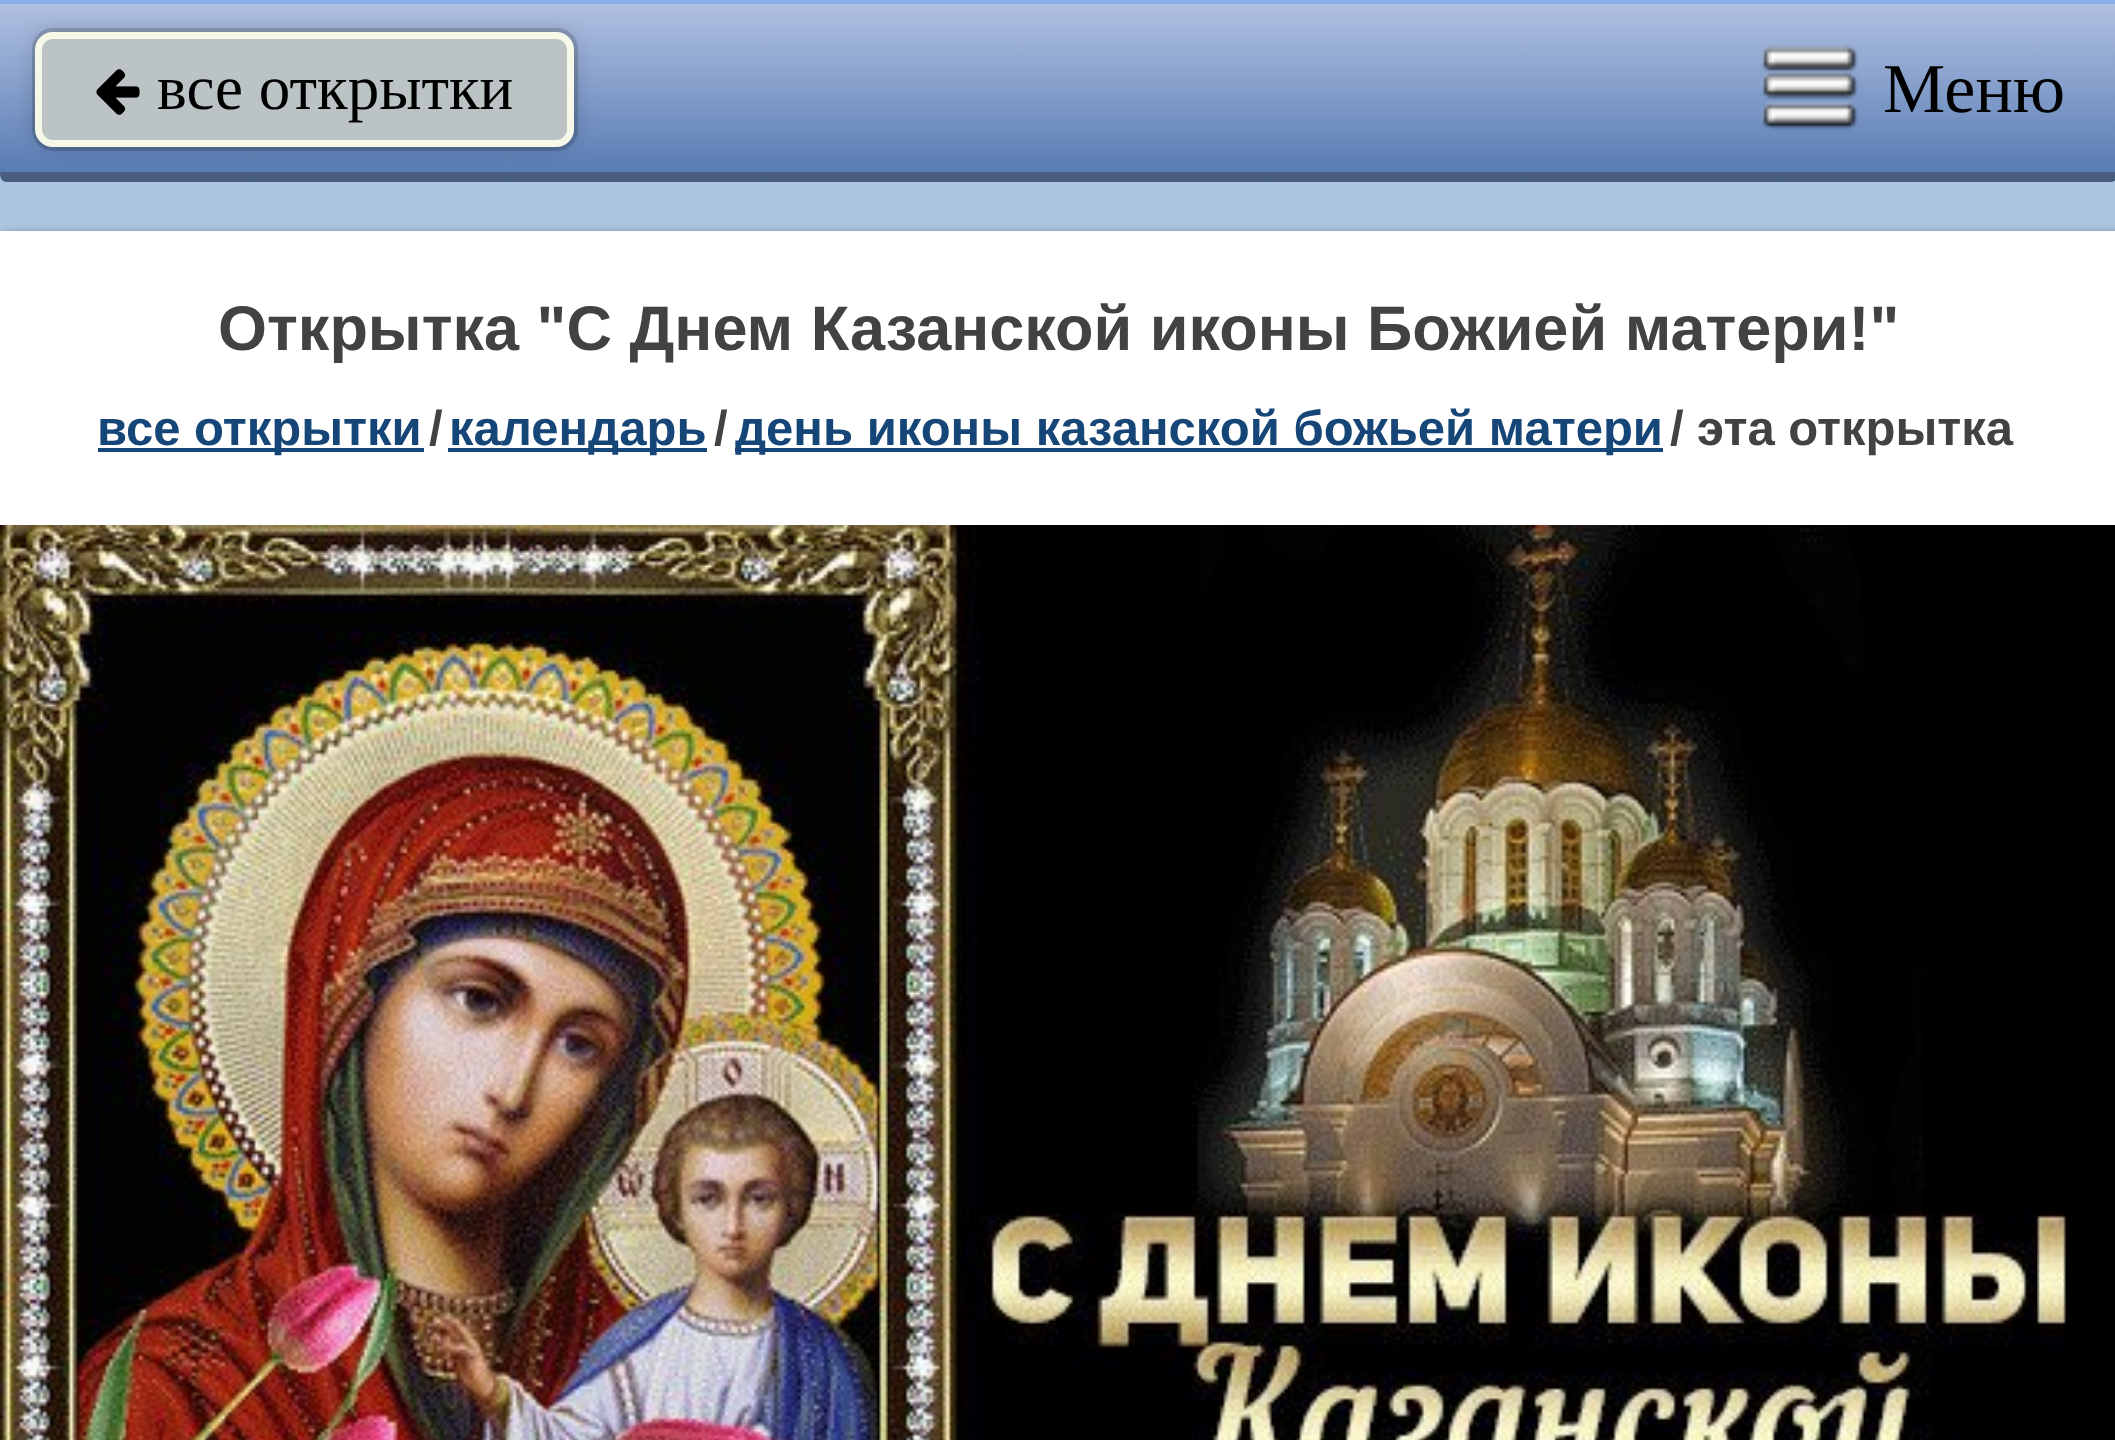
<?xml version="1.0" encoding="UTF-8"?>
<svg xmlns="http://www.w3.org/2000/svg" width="2115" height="1440">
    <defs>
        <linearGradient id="g1" gradientUnits="userSpaceOnUse" x1="1059" y1="0" x2="1059" y2="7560"><stop offset="0" stop-color="#AAC6DE"/><stop offset="0.48" stop-color="#B0C0E1"/><stop offset="1" stop-color="#597CB4"/></linearGradient>
        <linearGradient id="g2" gradientUnits="userSpaceOnUse" x1="1059" y1="3.5" x2="1059" y2="172"><stop offset="0" stop-color="#B0C0E1"/><stop offset="1" stop-color="#597CB4"/></linearGradient>
        <linearGradient id="g3" gradientUnits="userSpaceOnUse" x1="1059" y1="171" x2="1059" y2="340"><stop offset="0" stop-color="#B0C0E1"/><stop offset="1" stop-color="#597CB4"/></linearGradient>
        <filter id="blur1" x="-50%" y="-200%" width="200%" height="500%"><feGaussianBlur stdDeviation="10.5"/></filter>
        <filter id="blur2" x="-50%" y="-200%" width="200%" height="500%"><feGaussianBlur stdDeviation="5"/></filter>
    </defs>
    <rect width="100%" height="100%" fill="#FFFFFF"/>
    <rect x="0" y="175" width="2115" height="56" fill="url(#g1)"/>
    <rect x="0" y="4" width="2115" height="168" fill="url(#g2)"/>
    <path d="M 0 172 H 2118 V 175 C 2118 179 2115 182 2111 182 H 7 C 3 182 0 179 0 175 Z" fill="url(#g3)"/>
    <rect x="0" y="0" width="2115" height="4" fill="#8AADE8"/>
    <path d="M 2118 172 V 177 C 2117 180 2113 182 2110 182 H 7 C 1 182 0 177 0 172 Z" fill="#495D7F"/>
    <rect x="35" y="32" width="539" height="115" rx="18" fill="#000000" fill-opacity="0.2" filter="url(#blur1)"/>
    <rect x="34" y="30" width="542" height="119" rx="19" fill="none" stroke="#000000" stroke-opacity="0.15" stroke-width="4"/>
    <rect x="38.5" y="35.5" width="532" height="108" rx="14.5" fill="#BBC3C5" stroke="#F6F8E8" stroke-width="7"/>
    <image x="96" y="69" width="44" height="46" href="img_01.png"/>
    <text x="157" y="109" font-family="Liberation Serif" font-size="63" fill="#000000">все открытки</text>
    <image x="1760" y="44" width="99" height="87" href="img_02.png"/>
    <text x="1883" y="112" font-family="Liberation Serif" font-size="70" fill="#000000">Меню</text>
    <rect x="4" y="235" width="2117" height="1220" fill="#424242" filter="url(#blur2)"/>
    <rect x="0" y="231" width="2115" height="294" fill="#FFFFFF"/>
    <text x="218" y="350" font-family="Liberation Sans" font-size="63" font-weight="700" fill="#424242">Открытка "С Днем Казанской иконы Божией матери!"</text>
    <rect x="98" y="448" width="326" height="4" fill="#154677"/>
    <text x="97" y="445" font-family="Liberation Sans" font-size="49" font-weight="700" fill="#154677">все открытки</text>
    <text x="429" y="445" font-family="Liberation Sans" font-size="49" font-weight="700" fill="#424242">/</text>
    <rect x="448" y="448" width="259" height="4" fill="#154677"/>
    <text x="449" y="445" font-family="Liberation Sans" font-size="49" font-weight="700" fill="#154677">календарь</text>
    <text x="714" y="445" font-family="Liberation Sans" font-size="49" font-weight="700" fill="#424242">/</text>
    <rect x="735" y="448" width="928" height="4" fill="#154677"/>
    <text x="735" y="445" font-family="Liberation Sans" font-size="49" font-weight="700" fill="#154677">день иконы казанской божьей матери</text>
    <text x="1670" y="445" font-family="Liberation Sans" font-size="49" font-weight="700" fill="#424242">/</text>
    <text x="1697" y="445" font-family="Liberation Sans" font-size="49" font-weight="700" fill="#424242">эта открытка</text>
    <image x="0" y="525" width="2115" height="915" href="img_03.png"/>
</svg>
